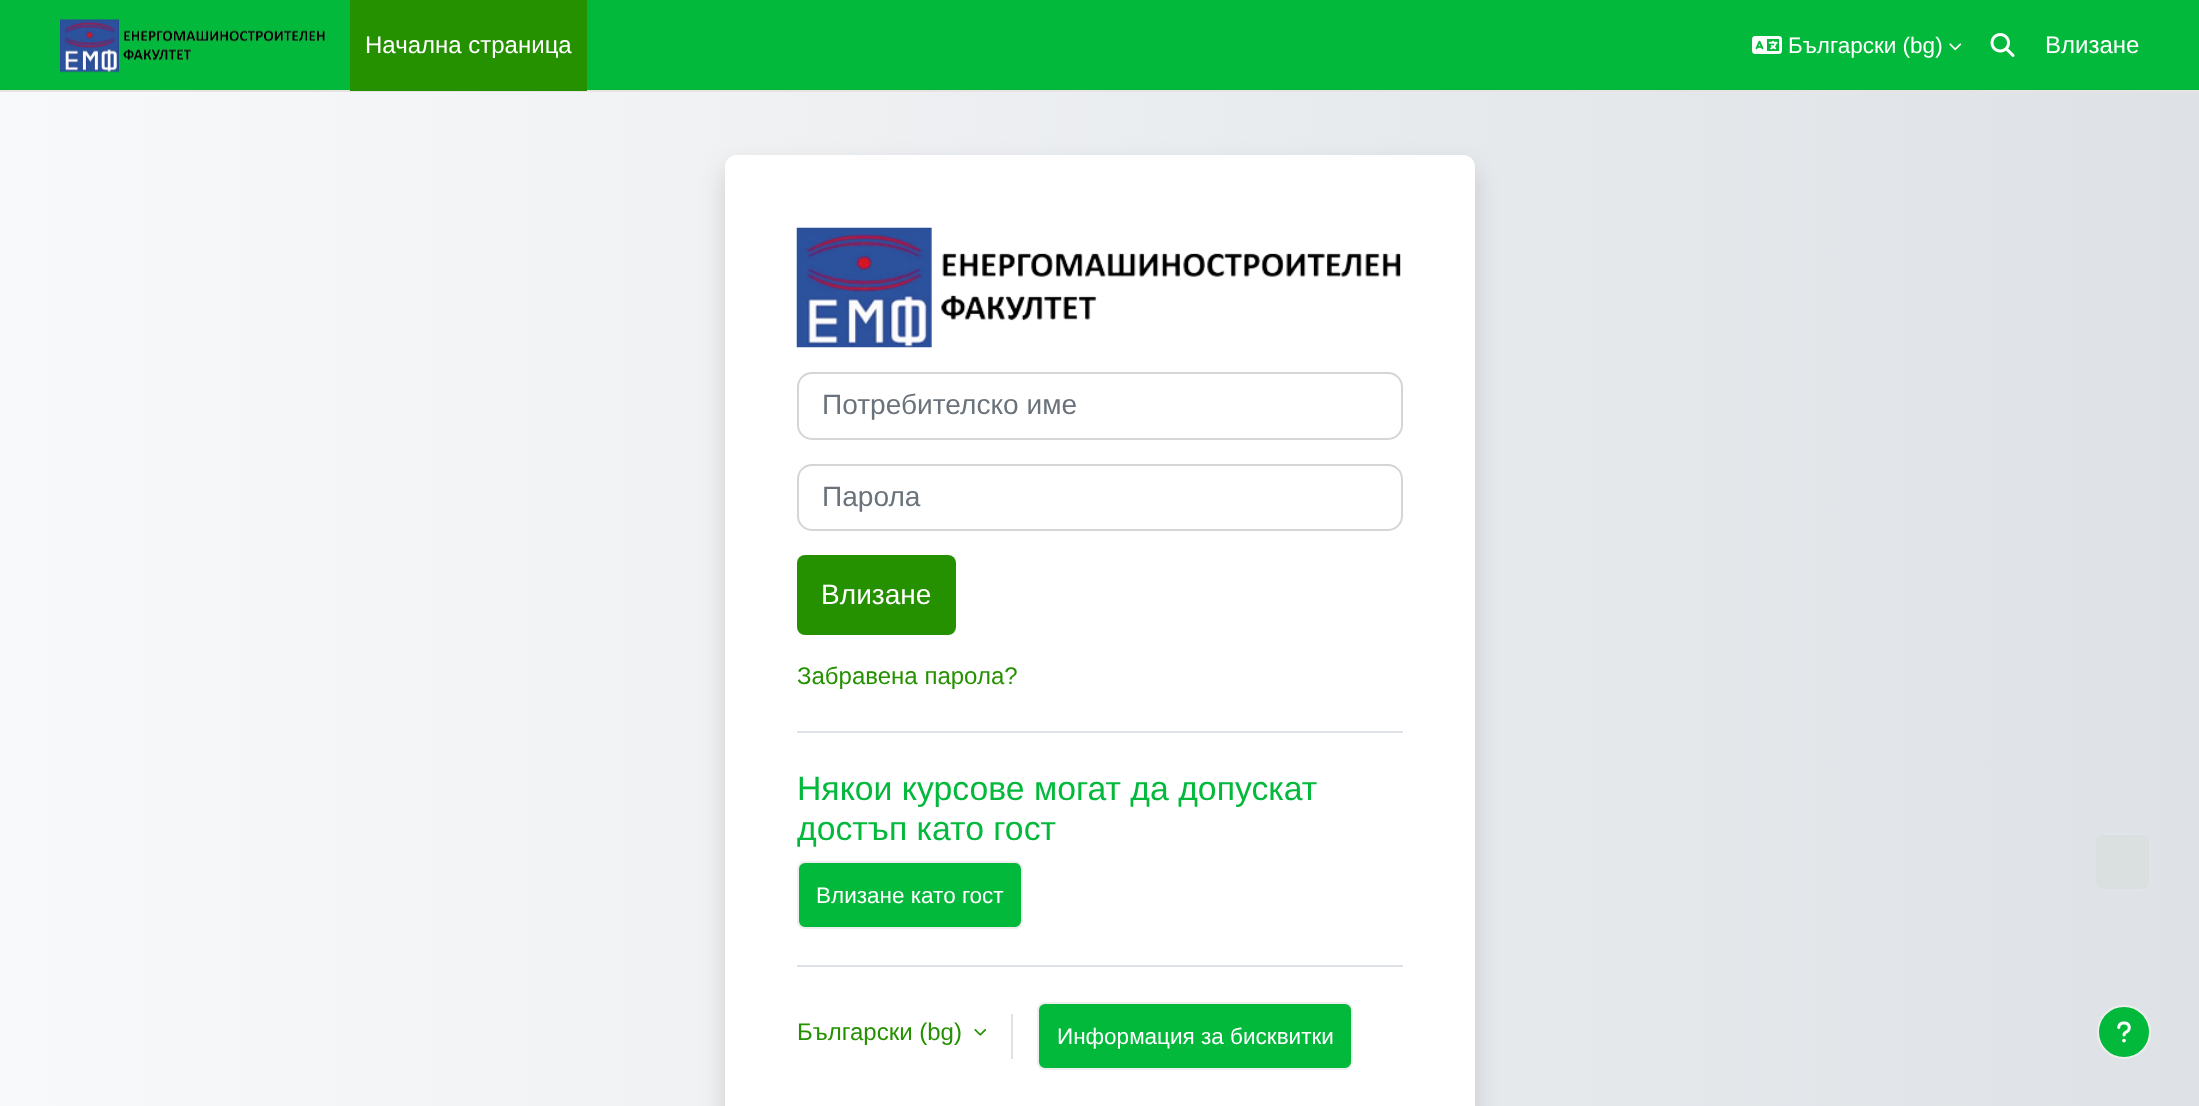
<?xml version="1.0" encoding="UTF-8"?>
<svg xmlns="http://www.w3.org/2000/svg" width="2199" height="1106">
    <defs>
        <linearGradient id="g1" gradientUnits="userSpaceOnUse" x1="0" y1="683" x2="2199" y2="683"><stop offset="0" stop-color="#F8F9FA"/><stop offset="1" stop-color="#DEE2E6"/></linearGradient>
        <filter id="blur1" x="-50%" y="-200%" width="200%" height="500%"><feGaussianBlur stdDeviation="12"/></filter>
    </defs>
    <rect width="100%" height="100%" fill="#FFFFFF"/>
    <rect x="0" y="0" width="2199" height="90" fill="#03B93B"/>
    <rect x="0" y="90" width="2199" height="2" fill="#E8E3E3"/>
    <image x="60" y="19" width="265" height="54" href="img_01.png"/>
    <rect x="350" y="0" width="237" height="91" fill="#259100"/>
    <text x="365" y="53" font-family="Liberation Sans" font-size="24" fill="#FFFFFF">Начална страница</text>
    <image x="1752" y="36" width="30" height="18" href="img_02.png"/>
    <text x="1788" y="53" font-family="Liberation Sans" font-size="22.5" fill="#FFFFFF">Български (bg)</text>
    <image x="1949" y="43" width="13" height="8" href="img_03.png"/>
    <image x="1990" y="33" width="25" height="24" href="img_04.png"/>
    <text x="2045" y="53" font-family="Liberation Sans" font-size="24" fill="#FFFFFF">Влизане</text>
    <rect x="0" y="92" width="2199" height="1014" fill="url(#g1)"/>
    <rect x="725" y="167" width="750" height="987" rx="12" fill="#000000" fill-opacity="0.15" filter="url(#blur1)"/>
    <rect x="725" y="155" width="750" height="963" rx="12" fill="#FFFFFF"/>
    <image x="796" y="227" width="605" height="121" href="img_05.png"/>
    <rect x="798" y="373" width="604" height="66" rx="14" fill="none" stroke="#D5D5D5" stroke-width="2"/>
    <text x="822" y="414" font-family="Liberation Sans" font-size="28.1" fill="#6A737B">Потребителско име</text>
    <rect x="798" y="465" width="604" height="65" rx="14" fill="none" stroke="#D5D5D5" stroke-width="2"/>
    <text x="822" y="506" font-family="Liberation Sans" font-size="28.1" fill="#6A737B">Парола</text>
    <rect x="797" y="555" width="159" height="80" rx="8" fill="#259100"/>
    <text x="821" y="604" font-family="Liberation Sans" font-size="28.1" fill="#FFFFFF">Влизане</text>
    <text x="797" y="684" font-family="Liberation Sans" font-size="24" fill="#259100">Забравена парола?</text>
    <rect x="797" y="731" width="606" height="2" fill="#DEE2E6"/>
    <text font-family="Liberation Sans" font-size="33.75" fill="#03B93B">
        <tspan x="797" y="800">Някои курсове могат да допускат</tspan>
        <tspan x="797" y="840">достъп като гост</tspan>
    </text>
    <rect x="798" y="862" width="224" height="66" rx="7" fill="#03B93B" stroke="#EEEEEE" stroke-width="2"/>
    <text x="816" y="903" font-family="Liberation Sans" font-size="22.5" fill="#FFFFFF">Влизане като гост</text>
    <rect x="797" y="965" width="606" height="2" fill="#DEE2E6"/>
    <text x="797" y="1040" font-family="Liberation Sans" font-size="24" fill="#259100">Български (bg)</text>
    <image x="974" y="1029" width="13" height="7" href="img_06.png"/>
    <rect x="1011" y="1014" width="2" height="45" fill="#DEE2E6"/>
    <rect x="1038" y="1003" width="314" height="66" rx="7" fill="#03B93B" stroke="#EEEEEE" stroke-width="2"/>
    <text x="1057" y="1044" font-family="Liberation Sans" font-size="22.5" fill="#FFFFFF">Информация за бисквитки</text>
    <rect x="2095" y="834" width="55" height="56" rx="7" fill="#D9E0DF" stroke="#E0E4E8" stroke-width="2"/>
    <circle cx="2124" cy="1032" r="26" fill="#03B93B" stroke="#EEEEEE" stroke-width="2"/>
    <image x="2117" y="1021" width="14" height="22" href="img_07.png"/>
</svg>
